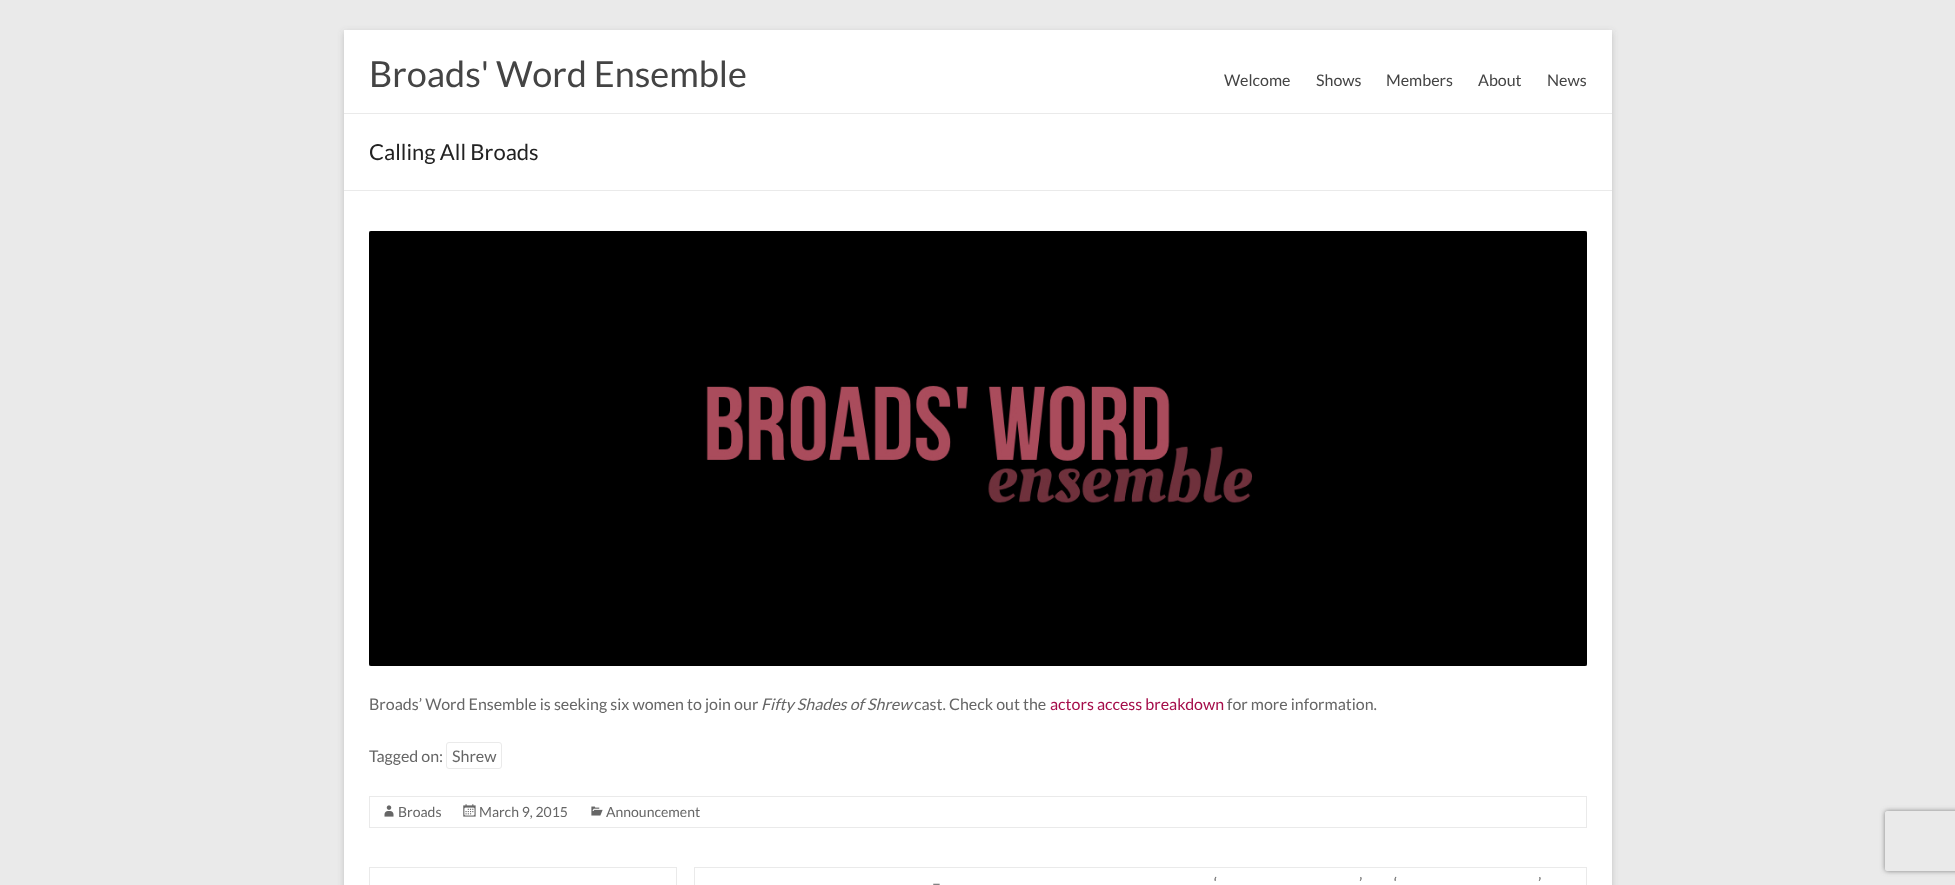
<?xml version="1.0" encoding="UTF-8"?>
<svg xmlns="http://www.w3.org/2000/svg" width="1955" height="885">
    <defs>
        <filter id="blur1" x="-50%" y="-200%" width="200%" height="500%"><feGaussianBlur stdDeviation="3"/></filter>
        <clipPath id="clip1"><path d="M 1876 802 H 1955 V 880 H 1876 Z M 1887 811 H 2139 C 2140 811 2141 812 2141 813 V 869 C 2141 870 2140 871 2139 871 H 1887 C 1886 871 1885 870 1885 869 V 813 C 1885 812 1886 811 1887 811 Z" clip-rule="evenodd"/></clipPath>
        <filter id="blur2" x="-50%" y="-200%" width="200%" height="500%"><feGaussianBlur stdDeviation="2.5"/></filter>
    </defs>
    <rect width="100%" height="100%" fill="#EAEAEA"/>
    <rect x="344" y="32" width="1268" height="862" fill="#646464" fill-opacity="0.3" filter="url(#blur1)"/>
    <rect x="344" y="30" width="1268" height="855" fill="#FFFFFF"/>
    <rect x="344" y="113" width="1268" height="1" fill="#EAEAEA"/>
    <text x="369" y="87" font-family="Lato" font-size="36" fill="#444444">Broads' Word Ensemble</text>
    <text x="1224" y="86" font-family="Lato" font-size="16" fill="#444444">Welcome</text>
    <text x="1316" y="86" font-family="Lato" font-size="16" fill="#444444">Shows</text>
    <text x="1386" y="86" font-family="Lato" font-size="16" fill="#444444">Members</text>
    <text x="1478" y="86" font-family="Lato" font-size="16" fill="#444444">About</text>
    <text x="1547" y="86" font-family="Lato" font-size="16" fill="#444444">News</text>
    <rect x="344" y="190" width="1268" height="1" fill="#EAEAEA"/>
    <text x="369" y="160" font-family="Lato" font-size="22" fill="#222222">Calling All Broads</text>
    <image x="369" y="231" width="1218" height="435" href="img_01.png"/>
    <text x="369" y="710" font-family="Lato" font-size="16" fill="#666666">Broads’ Word Ensemble is seeking six women to join our</text>
    <text x="761" y="710" font-family="Lato" font-size="16" font-style="italic" fill="#666666">Fifty Shades of Shrew</text>
    <text x="914" y="710" font-family="Lato" font-size="16" fill="#666666">cast. Check out the</text>
    <text x="1050" y="710" font-family="Lato" font-size="16" fill="#A50D4A">actors access breakdown</text>
    <text x="1227" y="710" font-family="Lato" font-size="16" fill="#666666">for more information.</text>
    <text x="369" y="762" font-family="Lato" font-size="16" fill="#666666">Tagged on:</text>
    <rect x="446.5" y="742.5" width="55" height="26" rx="2.5" fill="none" stroke="#EAEAEA"/>
    <text x="452" y="762" font-family="Lato" font-size="16" fill="#666666">Shrew</text>
    <rect x="369.5" y="796.5" width="1217" height="31" fill="none" stroke="#EAEAEA"/>
    <image x="384" y="805" width="10" height="12" href="img_02.png"/>
    <text x="398" y="817" font-family="Lato" font-size="14" fill="#666666">Broads</text>
    <image x="463" y="804" width="13" height="13" href="img_03.png"/>
    <text x="479" y="817" font-family="Lato" font-size="14" fill="#666666">March 9, 2015</text>
    <image x="591" y="806" width="12" height="10" href="img_04.png"/>
    <text x="606" y="817" font-family="Lato" font-size="14" fill="#666666">Announcement</text>
    <rect x="369" y="867" width="308" height="1" fill="#EAEAEA"/>
    <rect x="369" y="867" width="1" height="18" fill="#EAEAEA"/>
    <rect x="676" y="867" width="1" height="18" fill="#EAEAEA"/>
    <text x="1214" y="889" font-family="Lato" font-size="16" fill="#666666">‘</text>
    <text x="1359" y="889" font-family="Lato" font-size="16" fill="#666666">’</text>
    <text x="1394" y="889" font-family="Lato" font-size="16" fill="#666666">‘</text>
    <rect x="694" y="867" width="893" height="1" fill="#EAEAEA"/>
    <text x="1538" y="889" font-family="Lato" font-size="16" fill="#666666">’</text>
    <rect x="1586" y="867" width="1" height="18" fill="#EAEAEA"/>
    <text x="932" y="889" font-family="Lato" font-size="16" fill="#666666">–</text>
    <rect x="694" y="867" width="1" height="18" fill="#EAEAEA"/>
    <g clip-path="url(#clip1)">
        <rect x="1885" y="811" width="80" height="60" rx="2" fill="#808080" filter="url(#blur2)"/>
    </g>
</svg>
